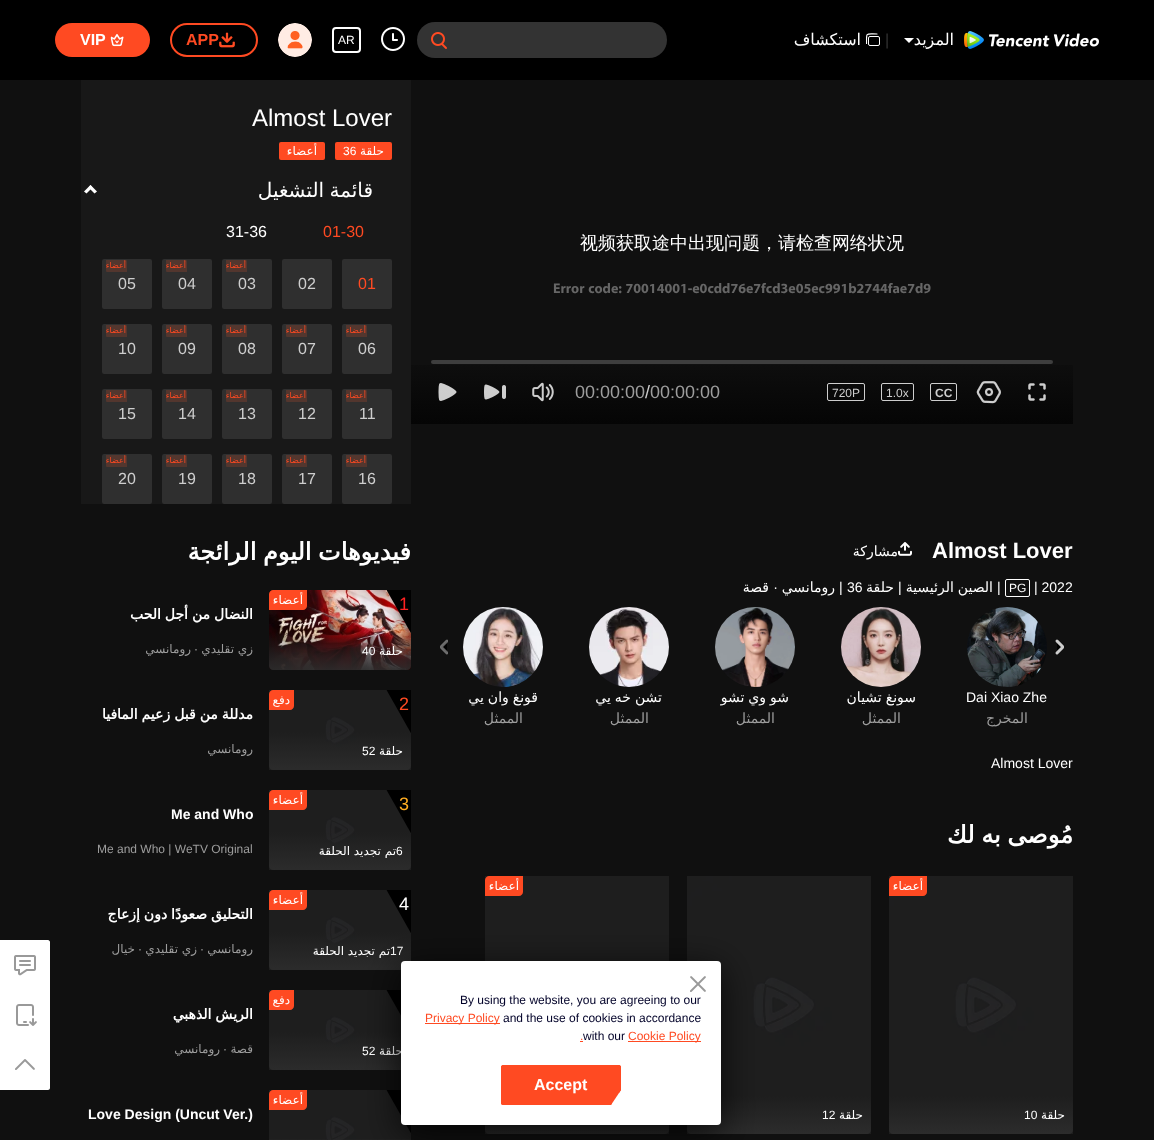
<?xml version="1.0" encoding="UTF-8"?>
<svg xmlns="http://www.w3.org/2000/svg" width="1154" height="1140">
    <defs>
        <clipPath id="clip1"><rect x="866" y="33" width="14" height="14"/></clipPath>
        <linearGradient id="g1" gradientUnits="userSpaceOnUse" x1="742" y1="340" x2="742" y2="424"><stop offset="0" stop-color="#111111"/><stop offset="1" stop-color="#050505"/></linearGradient>
        <clipPath id="clip2"><rect x="438" y="639" width="10" height="16"/></clipPath>
        <linearGradient id="g2" gradientUnits="userSpaceOnUse" x1="981" y1="1134" x2="981" y2="1096"><stop offset="0" stop-color="#2C2C2C"/><stop offset="1" stop-color="#1E1E1E"/></linearGradient>
        <linearGradient id="g3" gradientUnits="userSpaceOnUse" x1="779" y1="1134" x2="779" y2="1096"><stop offset="0" stop-color="#2C2C2C"/><stop offset="1" stop-color="#1E1E1E"/></linearGradient>
        <linearGradient id="g4" gradientUnits="userSpaceOnUse" x1="577" y1="1134" x2="577" y2="1096"><stop offset="0" stop-color="#2C2C2C"/><stop offset="1" stop-color="#1E1E1E"/></linearGradient>
        <clipPath id="clip3"><rect x="269" y="590" width="142" height="80"/></clipPath>
        <linearGradient id="g5" gradientUnits="userSpaceOnUse" x1="340" y1="670" x2="340" y2="632"><stop offset="0" stop-color="#2D2D2D" stop-opacity="0.9"/><stop offset="1" stop-color="#2D2D2D" stop-opacity="0"/></linearGradient>
        <clipPath id="clip4"><rect x="269" y="690" width="142" height="80"/></clipPath>
        <linearGradient id="g6" gradientUnits="userSpaceOnUse" x1="340" y1="770" x2="340" y2="732"><stop offset="0" stop-color="#2D2D2D" stop-opacity="0.9"/><stop offset="1" stop-color="#2D2D2D" stop-opacity="0"/></linearGradient>
        <clipPath id="clip5"><rect x="269" y="790" width="142" height="80"/></clipPath>
        <linearGradient id="g7" gradientUnits="userSpaceOnUse" x1="340" y1="870" x2="340" y2="832"><stop offset="0" stop-color="#2D2D2D" stop-opacity="0.9"/><stop offset="1" stop-color="#2D2D2D" stop-opacity="0"/></linearGradient>
        <clipPath id="clip6"><rect x="269" y="890" width="142" height="80"/></clipPath>
        <linearGradient id="g8" gradientUnits="userSpaceOnUse" x1="340" y1="970" x2="340" y2="932"><stop offset="0" stop-color="#2D2D2D" stop-opacity="0.9"/><stop offset="1" stop-color="#2D2D2D" stop-opacity="0"/></linearGradient>
        <clipPath id="clip7"><rect x="269" y="990" width="142" height="80"/></clipPath>
        <linearGradient id="g9" gradientUnits="userSpaceOnUse" x1="340" y1="1070" x2="340" y2="1032"><stop offset="0" stop-color="#2D2D2D" stop-opacity="0.9"/><stop offset="1" stop-color="#2D2D2D" stop-opacity="0"/></linearGradient>
        <clipPath id="clip8"><rect x="269" y="1090" width="142" height="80"/></clipPath>
        <linearGradient id="g10" gradientUnits="userSpaceOnUse" x1="340" y1="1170" x2="340" y2="1132"><stop offset="0" stop-color="#2D2D2D" stop-opacity="0.9"/><stop offset="1" stop-color="#2D2D2D" stop-opacity="0"/></linearGradient>
        <filter id="blur1" x="-50%" y="-200%" width="200%" height="500%"><feGaussianBlur stdDeviation="18"/></filter>
    </defs>
    <rect width="100%" height="100%" fill="#101010"/>
    <rect x="0" y="0" width="1154" height="80" fill="#000000"/>
    <image x="964" y="31" width="135" height="18" href="img_01.png"/>
    <text x="954" y="45" font-family="DejaVu Sans" font-size="16" direction="rtl" fill="#FFFFFF">المزيد</text>
    <path d="M 904 38 H 914 L 909 43 Z" fill="#FFFFFF"/>
    <text x="885" y="45" font-family="Liberation Sans" font-size="16" fill="#333333">|</text>
    <rect x="868.5" y="36.5" width="11" height="9" rx="1.5" fill="none" stroke="#FFFFFF"/>
    <g clip-path="url(#clip1)">
        <path d="M 877 34 C 865.5 34 866.5 32 866.5 43.5" fill="none" stroke="#FFFFFF" stroke-width="1.2" stroke-linecap="round"/>
    </g>
    <text x="861" y="45" font-family="DejaVu Sans" font-size="16" direction="rtl" fill="#FFFFFF">استكشاف</text>
    <rect x="417" y="22" width="250" height="36" rx="18" fill="#333333"/>
    <image x="431" y="32" width="16" height="17" href="img_02.png"/>
    <image x="381" y="27" width="24" height="24" href="img_03.png"/>
    <rect x="333" y="28" width="27" height="24" rx="3" fill="none" stroke="#FFFFFF" stroke-width="2"/>
    <text x="338" y="44" font-family="Liberation Sans" font-size="12" fill="#FFFFFF">AR</text>
    <image x="278" y="23" width="34" height="34" href="img_04.png"/>
    <rect x="171" y="24" width="86" height="32" rx="16" fill="none" stroke="#FF4A22" stroke-width="2"/>
    <image x="219" y="32" width="16" height="16" href="img_05.png"/>
    <text x="186" y="45" font-family="Liberation Sans" font-size="16" font-weight="700" fill="#FF4A22">APP</text>
    <rect x="55" y="23" width="95" height="34" rx="17" fill="#FF4A22"/>
    <image x="110" y="34" width="14" height="13" href="img_06.png"/>
    <text x="80" y="45" font-family="Liberation Sans" font-size="16" font-weight="700" fill="#FFFFFF">VIP</text>
    <text x="580" y="249" font-family="WenQuanYi Zen Hei" font-size="18" font-weight="500" fill="#FFFFFF">视频获取途中出现问题，请检查网络状况</text>
    <text x="553" y="293" font-family="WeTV" font-size="14" font-weight="700" fill="#666666">Error code: 70014001-e0cdd76e7fcd3e05ec991b2744fae7d9</text>
    <rect x="411" y="365" width="662" height="59" fill="url(#g1)"/>
    <rect x="431" y="360" width="622" height="4" rx="2" fill="#3E3E3E"/>
    <image x="1028" y="383" width="18" height="18" href="img_07.png"/>
    <image x="976" y="381" width="25" height="23" href="img_08.png"/>
    <rect x="930.5" y="383.5" width="26" height="17" rx="1.5" fill="none" stroke="#FFFFFF" stroke-opacity="0.8"/>
    <text x="935" y="397" font-family="Liberation Sans" font-size="12" font-weight="700" fill="#CECECE">CC</text>
    <rect x="881.5" y="383.5" width="32" height="17" rx="1.5" fill="none" stroke="#FFFFFF" stroke-opacity="0.8"/>
    <text x="886" y="397" font-family="Liberation Sans" font-size="12" fill="#CECECE">1.0x</text>
    <rect x="827.5" y="383.5" width="37" height="17" rx="1.5" fill="none" stroke="#FFFFFF" stroke-opacity="0.8"/>
    <text x="832" y="397" font-family="Liberation Sans" font-size="12" fill="#CECECE">720P</text>
    <text x="645" y="398" font-family="Liberation Sans" font-size="18" fill="#CECECE">/</text>
    <text x="650" y="398" font-family="Liberation Sans" font-size="18" fill="#9D9D9D">00:00:00</text>
    <text x="575" y="398" font-family="Liberation Sans" font-size="18" fill="#9D9D9D">00:00:00</text>
    <image x="532" y="382" width="22" height="20" href="img_09.png"/>
    <image x="484" y="384" width="22" height="16" href="img_10.png"/>
    <image x="438" y="383" width="19" height="18" href="img_11.png"/>
    <rect x="81" y="80" width="330" height="424" fill="#181818"/>
    <text x="252" y="126" font-family="Liberation Sans" font-size="24" fill="#FFFFFF">Almost Lover</text>
    <rect x="335" y="142" width="57" height="18" rx="2" fill="#FF4A22"/>
    <text x="384" y="155" font-family="DejaVu Sans" font-size="12" direction="rtl" fill="#FFFFFF">حلقة</text>
    <text x="343" y="155" font-family="Liberation Sans" font-size="12" fill="#FFFFFF">36</text>
    <rect x="279" y="142" width="46" height="18" rx="2" fill="#FF4A22"/>
    <text x="317" y="155" font-family="DejaVu Sans" font-size="12" direction="rtl" fill="#FFFFFF">أعضاء</text>
    <text x="373" y="197" word-spacing="-1" font-family="DejaVu Sans" font-size="20" direction="rtl" fill="#FFFFFF">قائمة التشغيل</text>
    <path d="M 86.5 193.5 L 84 191.5 L 90.5 185 L 92.5 187.5 Z" fill="#FFFFFF"/>
    <path d="M 94.5 193.5 L 88.5 187.5 L 90.5 185 L 97 191.5 Z" fill="#FFFFFF"/>
    <text x="323" y="237" font-family="Liberation Sans" font-size="16" fill="#FF4A22">01-30</text>
    <text x="226" y="237" font-family="Liberation Sans" font-size="16" fill="#FFFFFF">31-36</text>
    <rect x="342" y="259" width="50" height="50" rx="2" fill="#2F2F2F"/>
    <text x="358" y="289" font-family="Liberation Sans" font-size="16" fill="#FF4A22">01</text>
    <rect x="282" y="259" width="50" height="50" rx="2" fill="#2F2F2F"/>
    <text x="298" y="289" font-family="Liberation Sans" font-size="16" fill="#CECECE">02</text>
    <rect x="222" y="259" width="50" height="50" rx="2" fill="#2F2F2F"/>
    <path d="M 226 260 H 245.5 C 246.5 260 247 260.5 247 261.5 V 272 H 227.5 C 226.5 272 226 271.5 226 270.5 Z" fill="#53362E"/>
    <text x="246" y="268" font-family="DejaVu Sans" font-size="8" direction="rtl" fill="#FF4A22">أعضاء</text>
    <text x="238" y="289" font-family="Liberation Sans" font-size="16" fill="#CECECE">03</text>
    <rect x="162" y="259" width="50" height="50" rx="2" fill="#2F2F2F"/>
    <path d="M 166 260 H 185.5 C 186.5 260 187 260.5 187 261.5 V 272 H 167.5 C 166.5 272 166 271.5 166 270.5 Z" fill="#53362E"/>
    <text x="186" y="268" font-family="DejaVu Sans" font-size="8" direction="rtl" fill="#FF4A22">أعضاء</text>
    <text x="178" y="289" font-family="Liberation Sans" font-size="16" fill="#CECECE">04</text>
    <rect x="102" y="259" width="50" height="50" rx="2" fill="#2F2F2F"/>
    <path d="M 106 260 H 125.5 C 126.5 260 127 260.5 127 261.5 V 272 H 107.5 C 106.5 272 106 271.5 106 270.5 Z" fill="#53362E"/>
    <text x="126" y="268" font-family="DejaVu Sans" font-size="8" direction="rtl" fill="#FF4A22">أعضاء</text>
    <text x="118" y="289" font-family="Liberation Sans" font-size="16" fill="#CECECE">05</text>
    <rect x="342" y="324" width="50" height="50" rx="2" fill="#2F2F2F"/>
    <path d="M 346 325 H 365.5 C 366.5 325 367 325.5 367 326.5 V 337 H 347.5 C 346.5 337 346 336.5 346 335.5 Z" fill="#53362E"/>
    <text x="366" y="333" font-family="DejaVu Sans" font-size="8" direction="rtl" fill="#FF4A22">أعضاء</text>
    <text x="358" y="354" font-family="Liberation Sans" font-size="16" fill="#CECECE">06</text>
    <rect x="282" y="324" width="50" height="50" rx="2" fill="#2F2F2F"/>
    <path d="M 286 325 H 305.5 C 306.5 325 307 325.5 307 326.5 V 337 H 287.5 C 286.5 337 286 336.5 286 335.5 Z" fill="#53362E"/>
    <text x="306" y="333" font-family="DejaVu Sans" font-size="8" direction="rtl" fill="#FF4A22">أعضاء</text>
    <text x="298" y="354" font-family="Liberation Sans" font-size="16" fill="#CECECE">07</text>
    <rect x="222" y="324" width="50" height="50" rx="2" fill="#2F2F2F"/>
    <path d="M 226 325 H 245.5 C 246.5 325 247 325.5 247 326.5 V 337 H 227.5 C 226.5 337 226 336.5 226 335.5 Z" fill="#53362E"/>
    <text x="246" y="333" font-family="DejaVu Sans" font-size="8" direction="rtl" fill="#FF4A22">أعضاء</text>
    <text x="238" y="354" font-family="Liberation Sans" font-size="16" fill="#CECECE">08</text>
    <rect x="162" y="324" width="50" height="50" rx="2" fill="#2F2F2F"/>
    <path d="M 166 325 H 185.5 C 186.5 325 187 325.5 187 326.5 V 337 H 167.5 C 166.5 337 166 336.5 166 335.5 Z" fill="#53362E"/>
    <text x="186" y="333" font-family="DejaVu Sans" font-size="8" direction="rtl" fill="#FF4A22">أعضاء</text>
    <text x="178" y="354" font-family="Liberation Sans" font-size="16" fill="#CECECE">09</text>
    <rect x="102" y="324" width="50" height="50" rx="2" fill="#2F2F2F"/>
    <path d="M 106 325 H 125.5 C 126.5 325 127 325.5 127 326.5 V 337 H 107.5 C 106.5 337 106 336.5 106 335.5 Z" fill="#53362E"/>
    <text x="126" y="333" font-family="DejaVu Sans" font-size="8" direction="rtl" fill="#FF4A22">أعضاء</text>
    <text x="118" y="354" font-family="Liberation Sans" font-size="16" fill="#CECECE">10</text>
    <rect x="342" y="389" width="50" height="50" rx="2" fill="#2F2F2F"/>
    <path d="M 346 390 H 365.5 C 366.5 390 367 390.5 367 391.5 V 402 H 347.5 C 346.5 402 346 401.5 346 400.5 Z" fill="#53362E"/>
    <text x="366" y="398" font-family="DejaVu Sans" font-size="8" direction="rtl" fill="#FF4A22">أعضاء</text>
    <text x="359" y="419" font-family="Liberation Sans" font-size="16" fill="#CECECE">11</text>
    <rect x="282" y="389" width="50" height="50" rx="2" fill="#2F2F2F"/>
    <path d="M 286 390 H 305.5 C 306.5 390 307 390.5 307 391.5 V 402 H 287.5 C 286.5 402 286 401.5 286 400.5 Z" fill="#53362E"/>
    <text x="306" y="398" font-family="DejaVu Sans" font-size="8" direction="rtl" fill="#FF4A22">أعضاء</text>
    <text x="298" y="419" font-family="Liberation Sans" font-size="16" fill="#CECECE">12</text>
    <rect x="222" y="389" width="50" height="50" rx="2" fill="#2F2F2F"/>
    <path d="M 226 390 H 245.5 C 246.5 390 247 390.5 247 391.5 V 402 H 227.5 C 226.5 402 226 401.5 226 400.5 Z" fill="#53362E"/>
    <text x="246" y="398" font-family="DejaVu Sans" font-size="8" direction="rtl" fill="#FF4A22">أعضاء</text>
    <text x="238" y="419" font-family="Liberation Sans" font-size="16" fill="#CECECE">13</text>
    <rect x="162" y="389" width="50" height="50" rx="2" fill="#2F2F2F"/>
    <path d="M 166 390 H 185.5 C 186.5 390 187 390.5 187 391.5 V 402 H 167.5 C 166.5 402 166 401.5 166 400.5 Z" fill="#53362E"/>
    <text x="186" y="398" font-family="DejaVu Sans" font-size="8" direction="rtl" fill="#FF4A22">أعضاء</text>
    <text x="178" y="419" font-family="Liberation Sans" font-size="16" fill="#CECECE">14</text>
    <rect x="102" y="389" width="50" height="50" rx="2" fill="#2F2F2F"/>
    <path d="M 106 390 H 125.5 C 126.5 390 127 390.5 127 391.5 V 402 H 107.5 C 106.5 402 106 401.5 106 400.5 Z" fill="#53362E"/>
    <text x="126" y="398" font-family="DejaVu Sans" font-size="8" direction="rtl" fill="#FF4A22">أعضاء</text>
    <text x="118" y="419" font-family="Liberation Sans" font-size="16" fill="#CECECE">15</text>
    <rect x="342" y="454" width="50" height="50" rx="2" fill="#2F2F2F"/>
    <path d="M 346 455 H 365.5 C 366.5 455 367 455.5 367 456.5 V 467 H 347.5 C 346.5 467 346 466.5 346 465.5 Z" fill="#53362E"/>
    <text x="366" y="463" font-family="DejaVu Sans" font-size="8" direction="rtl" fill="#FF4A22">أعضاء</text>
    <text x="358" y="484" font-family="Liberation Sans" font-size="16" fill="#CECECE">16</text>
    <rect x="282" y="454" width="50" height="50" rx="2" fill="#2F2F2F"/>
    <path d="M 286 455 H 305.5 C 306.5 455 307 455.5 307 456.5 V 467 H 287.5 C 286.5 467 286 466.5 286 465.5 Z" fill="#53362E"/>
    <text x="306" y="463" font-family="DejaVu Sans" font-size="8" direction="rtl" fill="#FF4A22">أعضاء</text>
    <text x="298" y="484" font-family="Liberation Sans" font-size="16" fill="#CECECE">17</text>
    <rect x="222" y="454" width="50" height="50" rx="2" fill="#2F2F2F"/>
    <path d="M 226 455 H 245.5 C 246.5 455 247 455.5 247 456.5 V 467 H 227.5 C 226.5 467 226 466.5 226 465.5 Z" fill="#53362E"/>
    <text x="246" y="463" font-family="DejaVu Sans" font-size="8" direction="rtl" fill="#FF4A22">أعضاء</text>
    <text x="238" y="484" font-family="Liberation Sans" font-size="16" fill="#CECECE">18</text>
    <rect x="162" y="454" width="50" height="50" rx="2" fill="#2F2F2F"/>
    <path d="M 166 455 H 185.5 C 186.5 455 187 455.5 187 456.5 V 467 H 167.5 C 166.5 467 166 466.5 166 465.5 Z" fill="#53362E"/>
    <text x="186" y="463" font-family="DejaVu Sans" font-size="8" direction="rtl" fill="#FF4A22">أعضاء</text>
    <text x="178" y="484" font-family="Liberation Sans" font-size="16" fill="#CECECE">19</text>
    <rect x="102" y="454" width="50" height="50" rx="2" fill="#2F2F2F"/>
    <path d="M 106 455 H 125.5 C 126.5 455 127 455.5 127 456.5 V 467 H 107.5 C 106.5 467 106 466.5 106 465.5 Z" fill="#53362E"/>
    <text x="126" y="463" font-family="DejaVu Sans" font-size="8" direction="rtl" fill="#FF4A22">أعضاء</text>
    <text x="118" y="484" font-family="Liberation Sans" font-size="16" fill="#CECECE">20</text>
    <text x="932" y="558" font-family="Liberation Sans" font-size="22" font-weight="700" fill="#FFFFFF">Almost Lover</text>
    <image x="898" y="542" width="14" height="14" href="img_12.png"/>
    <text x="898" y="556" font-family="DejaVu Sans" font-size="14" direction="rtl" fill="#FFFFFF">مشاركة</text>
    <text x="1034" y="592" font-family="Liberation Sans" font-size="14" fill="#FFFFFF">| 2022</text>
    <rect x="1005.5" y="579.5" width="24" height="17" rx="1.5" fill="none" stroke="#FFFFFF"/>
    <text x="1009" y="592" font-family="Liberation Sans" font-size="12" fill="#FFFFFF">PG</text>
    <text x="997" y="592" font-family="Liberation Sans" font-size="14" fill="#FFFFFF">|</text>
    <text x="993" y="592" word-spacing="-0.5" font-family="DejaVu Sans" font-size="14" direction="rtl" fill="#FFFFFF">الصين الرئيسية</text>
    <text x="898" y="592" font-family="Liberation Sans" font-size="14" fill="#FFFFFF">|</text>
    <text x="894" y="592" font-family="DejaVu Sans" font-size="14" direction="rtl" fill="#FFFFFF">حلقة</text>
    <text x="847" y="592" font-family="Liberation Sans" font-size="14" fill="#FFFFFF">36</text>
    <text x="839" y="592" font-family="Liberation Sans" font-size="14" fill="#FFFFFF">|</text>
    <text x="835" y="592" font-family="DejaVu Sans" font-size="14" direction="rtl" fill="#FFFFFF">رومانسي</text>
    <text x="778" y="592" font-family="Liberation Sans" font-size="14" direction="rtl" fill="#FFFFFF">·</text>
    <text x="769" y="592" font-family="DejaVu Sans" font-size="14" direction="rtl" fill="#FFFFFF">قصة</text>
    <path d="M 1057 653 L 1062.5 647.5 V 646.5 L 1057 641" fill="#000000" stroke="#FFFFFF" stroke-opacity="0.8" stroke-width="3" stroke-linecap="round" stroke-linejoin="round"/>
    <path d="M 447 641 L 441.5 646.5 V 647.5 L 447 653" fill="#000000"/>
    <g clip-path="url(#clip2)">
        <path d="M 447 641 L 441.5 646.5 V 647.5 L 447 653" fill="none" stroke="#FFFFFF" stroke-opacity="0.4" stroke-width="3" stroke-linecap="round" stroke-linejoin="round"/>
    </g>
    <image x="967" y="607" width="80" height="80" href="img_13.png"/>
    <text x="966" y="702" font-family="Liberation Sans" font-size="14" fill="#FFFFFF">Dai Xiao Zhe</text>
    <text x="1028" y="723" font-family="DejaVu Sans" font-size="14" direction="rtl" fill="#9D9D9D">المخرج</text>
    <image x="841" y="607" width="80" height="80" href="img_14.png"/>
    <text x="916" y="702" word-spacing="-0.5" font-family="DejaVu Sans" font-size="14" direction="rtl" fill="#FFFFFF">سونغ تشيان</text>
    <text x="901" y="723" font-family="DejaVu Sans" font-size="14" direction="rtl" fill="#9D9D9D">الممثل</text>
    <image x="715" y="607" width="80" height="80" href="img_15.png"/>
    <text x="789" y="702" word-spacing="-0.5" font-family="DejaVu Sans" font-size="14" direction="rtl" fill="#FFFFFF">شو وي تشو</text>
    <text x="775" y="723" font-family="DejaVu Sans" font-size="14" direction="rtl" fill="#9D9D9D">الممثل</text>
    <image x="589" y="607" width="80" height="80" href="img_16.png"/>
    <text x="662" y="702" word-spacing="-0.5" font-family="DejaVu Sans" font-size="14" direction="rtl" fill="#FFFFFF">تشن خه يي</text>
    <text x="649" y="723" font-family="DejaVu Sans" font-size="14" direction="rtl" fill="#9D9D9D">الممثل</text>
    <image x="463" y="607" width="80" height="80" href="img_17.png"/>
    <text x="538" y="702" word-spacing="-0.5" font-family="DejaVu Sans" font-size="14" direction="rtl" fill="#FFFFFF">قونغ وان يي</text>
    <text x="523" y="723" font-family="DejaVu Sans" font-size="14" direction="rtl" fill="#9D9D9D">الممثل</text>
    <text x="991" y="768" font-family="Liberation Sans" font-size="14" fill="#FFFFFF">Almost Lover</text>
    <text x="1073" y="843" word-spacing="-1" font-family="DejaVu Sans" font-size="24" font-weight="700" direction="rtl" fill="#FFFFFF">مُوصى به لك</text>
    <image x="889" y="876" width="184" height="258" href="img_18.png"/>
    <path d="M 893 876 H 927 V 892 C 927 894 925 896 923 896 H 889 V 880 C 889 878 891 876 893 876 Z" fill="#FF4A22"/>
    <text x="923" y="890" font-family="DejaVu Sans" font-size="12" direction="rtl" fill="#FFFFFF">أعضاء</text>
    <path d="M 889 1096 H 1073 V 1130 C 1073 1132 1071 1134 1069 1134 H 893 C 891 1134 889 1132 889 1130 Z" fill="url(#g2)"/>
    <text x="1065" y="1119" font-family="DejaVu Sans" font-size="12" direction="rtl" fill="#FFFFFF">حلقة</text>
    <text x="1024" y="1119" font-family="Liberation Sans" font-size="12" fill="#FFFFFF">10</text>
    <image x="687" y="876" width="184" height="258" href="img_18.png"/>
    <path d="M 687 1096 H 871 V 1130 C 871 1132 869 1134 867 1134 H 691 C 689 1134 687 1132 687 1130 Z" fill="url(#g3)"/>
    <text x="863" y="1119" font-family="DejaVu Sans" font-size="12" direction="rtl" fill="#FFFFFF">حلقة</text>
    <text x="822" y="1119" font-family="Liberation Sans" font-size="12" fill="#FFFFFF">12</text>
    <image x="485" y="876" width="184" height="258" href="img_18.png"/>
    <path d="M 489 876 H 523 V 892 C 523 894 521 896 519 896 H 485 V 880 C 485 878 487 876 489 876 Z" fill="#FF4A22"/>
    <text x="519" y="890" font-family="DejaVu Sans" font-size="12" direction="rtl" fill="#FFFFFF">أعضاء</text>
    <path d="M 485 1096 H 669 V 1130 C 669 1132 667 1134 665 1134 H 489 C 487 1134 485 1132 485 1130 Z" fill="url(#g4)"/>
    <text x="411" y="560" word-spacing="-1" font-family="DejaVu Sans" font-size="24" font-weight="700" direction="rtl" fill="#FFFFFF">فيديوهات اليوم الرائجة</text>
    <image x="269" y="590" width="142" height="80" href="img_19.png"/>
    <g clip-path="url(#clip3)">
        <path d="M 386 589 H 412 V 635 Z" fill="#000000"/>
    </g>
    <text x="399" y="610" font-family="Liberation Sans" font-size="18" fill="#FF2222">1</text>
    <path d="M 273 590 H 307 V 606 C 307 608 305 610 303 610 H 269 V 594 C 269 592 271 590 273 590 Z" fill="#FF4A22"/>
    <text x="303" y="604" font-family="DejaVu Sans" font-size="12" direction="rtl" fill="#FFFFFF">أعضاء</text>
    <path d="M 269 632 H 411 V 666 C 411 668 409 670 407 670 H 273 C 271 670 269 668 269 666 Z" fill="url(#g5)"/>
    <text x="403" y="655" font-family="DejaVu Sans" font-size="12" direction="rtl" fill="#FFFFFF">حلقة</text>
    <text x="362" y="655" font-family="Liberation Sans" font-size="12" fill="#FFFFFF">40</text>
    <text x="253" y="619" word-spacing="-0.5" font-family="DejaVu Sans" font-size="14" font-weight="700" direction="rtl" fill="#FFFFFF">النضال من أجل الحب</text>
    <text x="253" y="653" font-family="DejaVu Sans" font-size="12" direction="rtl" fill="#9D9D9D">زي تقليدي</text>
    <text x="198" y="653" font-family="Liberation Sans" font-size="12" direction="rtl" fill="#9D9D9D">·</text>
    <text x="191" y="653" font-family="DejaVu Sans" font-size="12" direction="rtl" fill="#9D9D9D">رومانسي</text>
    <image x="269" y="690" width="142" height="80" href="img_20.png"/>
    <g clip-path="url(#clip4)">
        <path d="M 386 689 H 412 V 735 Z" fill="#000000"/>
    </g>
    <text x="399" y="710" font-family="Liberation Sans" font-size="18" fill="#FF4A22">2</text>
    <path d="M 273 690 H 294 V 706 C 294 708 292 710 290 710 H 269 V 694 C 269 692 271 690 273 690 Z" fill="#FF4A22"/>
    <text x="290" y="704" font-family="DejaVu Sans" font-size="12" direction="rtl" fill="#FFFFFF">دفع</text>
    <path d="M 269 732 H 411 V 766 C 411 768 409 770 407 770 H 273 C 271 770 269 768 269 766 Z" fill="url(#g6)"/>
    <text x="403" y="755" font-family="DejaVu Sans" font-size="12" direction="rtl" fill="#FFFFFF">حلقة</text>
    <text x="362" y="755" font-family="Liberation Sans" font-size="12" fill="#FFFFFF">52</text>
    <text x="253" y="719" word-spacing="-0.5" font-family="DejaVu Sans" font-size="14" font-weight="700" direction="rtl" fill="#FFFFFF">مدللة من قبل زعيم المافيا</text>
    <text x="253" y="753" font-family="DejaVu Sans" font-size="12" direction="rtl" fill="#9D9D9D">رومانسي</text>
    <image x="269" y="790" width="142" height="80" href="img_20.png"/>
    <g clip-path="url(#clip5)">
        <path d="M 386 789 H 412 V 835 Z" fill="#000000"/>
    </g>
    <text x="399" y="810" font-family="Liberation Sans" font-size="18" fill="#FFAD22">3</text>
    <path d="M 273 790 H 307 V 806 C 307 808 305 810 303 810 H 269 V 794 C 269 792 271 790 273 790 Z" fill="#FF4A22"/>
    <text x="303" y="804" font-family="DejaVu Sans" font-size="12" direction="rtl" fill="#FFFFFF">أعضاء</text>
    <path d="M 269 832 H 411 V 866 C 411 868 409 870 407 870 H 273 C 271 870 269 868 269 866 Z" fill="url(#g7)"/>
    <text x="396" y="855" font-family="Liberation Sans" font-size="12" fill="#FFFFFF">6</text>
    <text x="396" y="855" font-family="DejaVu Sans" font-size="12" direction="rtl" fill="#FFFFFF">تم تجديد الحلقة</text>
    <text x="171" y="819" font-family="Liberation Sans" font-size="14" font-weight="700" fill="#FFFFFF">Me and Who</text>
    <text x="97" y="853" font-family="Liberation Sans" font-size="12" fill="#9D9D9D">Me and Who | WeTV Original</text>
    <image x="269" y="890" width="142" height="80" href="img_20.png"/>
    <g clip-path="url(#clip6)">
        <path d="M 386 889 H 412 V 935 Z" fill="#000000"/>
    </g>
    <text x="399" y="910" font-family="Liberation Sans" font-size="18" fill="#FFFFFF">4</text>
    <path d="M 273 890 H 307 V 906 C 307 908 305 910 303 910 H 269 V 894 C 269 892 271 890 273 890 Z" fill="#FF4A22"/>
    <text x="303" y="904" font-family="DejaVu Sans" font-size="12" direction="rtl" fill="#FFFFFF">أعضاء</text>
    <path d="M 269 932 H 411 V 966 C 411 968 409 970 407 970 H 273 C 271 970 269 968 269 966 Z" fill="url(#g8)"/>
    <text x="390" y="955" font-family="Liberation Sans" font-size="12" fill="#FFFFFF">17</text>
    <text x="390" y="955" font-family="DejaVu Sans" font-size="12" direction="rtl" fill="#FFFFFF">تم تجديد الحلقة</text>
    <text x="253" y="919" word-spacing="-0.5" font-family="DejaVu Sans" font-size="14" font-weight="700" direction="rtl" fill="#FFFFFF">التحليق صعودًا دون إزعاج</text>
    <text x="253" y="953" font-family="DejaVu Sans" font-size="12" direction="rtl" fill="#9D9D9D">رومانسي</text>
    <text x="204" y="953" font-family="Liberation Sans" font-size="12" direction="rtl" fill="#9D9D9D">·</text>
    <text x="197" y="953" font-family="DejaVu Sans" font-size="12" direction="rtl" fill="#9D9D9D">زي تقليدي</text>
    <text x="142" y="953" font-family="Liberation Sans" font-size="12" direction="rtl" fill="#9D9D9D">·</text>
    <text x="135" y="953" font-family="DejaVu Sans" font-size="12" direction="rtl" fill="#9D9D9D">خيال</text>
    <image x="269" y="990" width="132" height="80" href="img_21.png"/>
    <g clip-path="url(#clip7)">
        <path d="M 386 989 H 412 V 1035 Z" fill="#000000"/>
    </g>
    <path d="M 273 990 H 294 V 1006 C 294 1008 292 1010 290 1010 H 269 V 994 C 269 992 271 990 273 990 Z" fill="#FF4A22"/>
    <text x="290" y="1004" font-family="DejaVu Sans" font-size="12" direction="rtl" fill="#FFFFFF">دفع</text>
    <path d="M 269 1032 H 411 V 1066 C 411 1068 409 1070 407 1070 H 273 C 271 1070 269 1068 269 1066 Z" fill="url(#g9)"/>
    <text x="403" y="1055" font-family="DejaVu Sans" font-size="12" direction="rtl" fill="#FFFFFF">حلقة</text>
    <text x="362" y="1055" font-family="Liberation Sans" font-size="12" fill="#FFFFFF">52</text>
    <text x="253" y="1019" word-spacing="-0.5" font-family="DejaVu Sans" font-size="14" font-weight="700" direction="rtl" fill="#FFFFFF">الريش الذهبي</text>
    <text x="253" y="1053" font-family="DejaVu Sans" font-size="12" direction="rtl" fill="#9D9D9D">قصة</text>
    <text x="227" y="1053" font-family="Liberation Sans" font-size="12" direction="rtl" fill="#9D9D9D">·</text>
    <text x="220" y="1053" font-family="DejaVu Sans" font-size="12" direction="rtl" fill="#9D9D9D">رومانسي</text>
    <image x="269" y="1090" width="142" height="50" href="img_22.png"/>
    <g clip-path="url(#clip8)">
        <path d="M 386 1089 H 412 V 1135 Z" fill="#000000"/>
    </g>
    <path d="M 273 1090 H 307 V 1106 C 307 1108 305 1110 303 1110 H 269 V 1094 C 269 1092 271 1090 273 1090 Z" fill="#FF4A22"/>
    <text x="303" y="1104" font-family="DejaVu Sans" font-size="12" direction="rtl" fill="#FFFFFF">أعضاء</text>
    <rect x="269" y="1139" width="142" height="1" fill="url(#g10)"/>
    <text x="88" y="1119" font-family="Liberation Sans" font-size="14" font-weight="700" fill="#FFFFFF">Love Design (Uncut Ver.)</text>
    <path d="M 0 940 H 48 C 49 940 50 941 50 942 V 1088 C 50 1089 49 1090 48 1090 H 0 Z" fill="#FFFFFF"/>
    <image x="14" y="955" width="22" height="21" href="img_23.png"/>
    <image x="16" y="1004" width="21" height="22" href="img_24.png"/>
    <image x="15" y="1059" width="20" height="11" href="img_25.png"/>
    <rect x="401" y="969" width="320" height="164" rx="4" fill="#000000" fill-opacity="0.8" filter="url(#blur1)"/>
    <rect x="401" y="961" width="320" height="164" rx="4" fill="#FFFFFF"/>
    <image x="690" y="976" width="16" height="16" href="img_26.png"/>
    <text x="460" y="1004" font-family="Liberation Sans" font-size="12" fill="#000028">By using the website, you are agreeing to our</text>
    <text x="503" y="1022" font-family="Liberation Sans" font-size="12" fill="#000028">and the use of cookies in accordance</text>
    <rect x="425" y="1023" width="75" height="1" fill="#FF4A22"/>
    <text x="425" y="1022" font-family="Liberation Sans" font-size="12" fill="#FF4A22">Privacy Policy</text>
    <rect x="628" y="1041" width="73" height="1" fill="#FF4A22"/>
    <text x="628" y="1040" font-family="Liberation Sans" font-size="12" fill="#FF4A22">Cookie Policy</text>
    <text x="583" y="1040" font-family="Liberation Sans" font-size="12" fill="#000028">with our</text>
    <text x="580" y="1040" font-family="Liberation Sans" font-size="12" fill="#FF4A22">.</text>
    <rect x="580" y="1041" width="3" height="1" fill="#FF4A22"/>
    <path d="M 503 1065 C 502 1065 501 1066 501 1067 V 1103 C 501 1104 502 1105 503 1105 H 611 L 621 1090 V 1067 C 621 1066 620 1065 619 1065 Z" fill="#FF4A22"/>
    <path d="M 503 1065 C 502 1065 501 1066 501 1067 V 1103 C 501 1104 502 1105 503 1105 H 611 L 612 1103 H 503 V 1067 H 619 V 1093 L 621 1090 V 1067 C 621 1066 620 1065 619 1065 Z" fill="#FF4A22"/>
    <text x="534" y="1090" font-family="Liberation Sans" font-size="16" font-weight="700" fill="#FFFFFF">Accept</text>
</svg>
